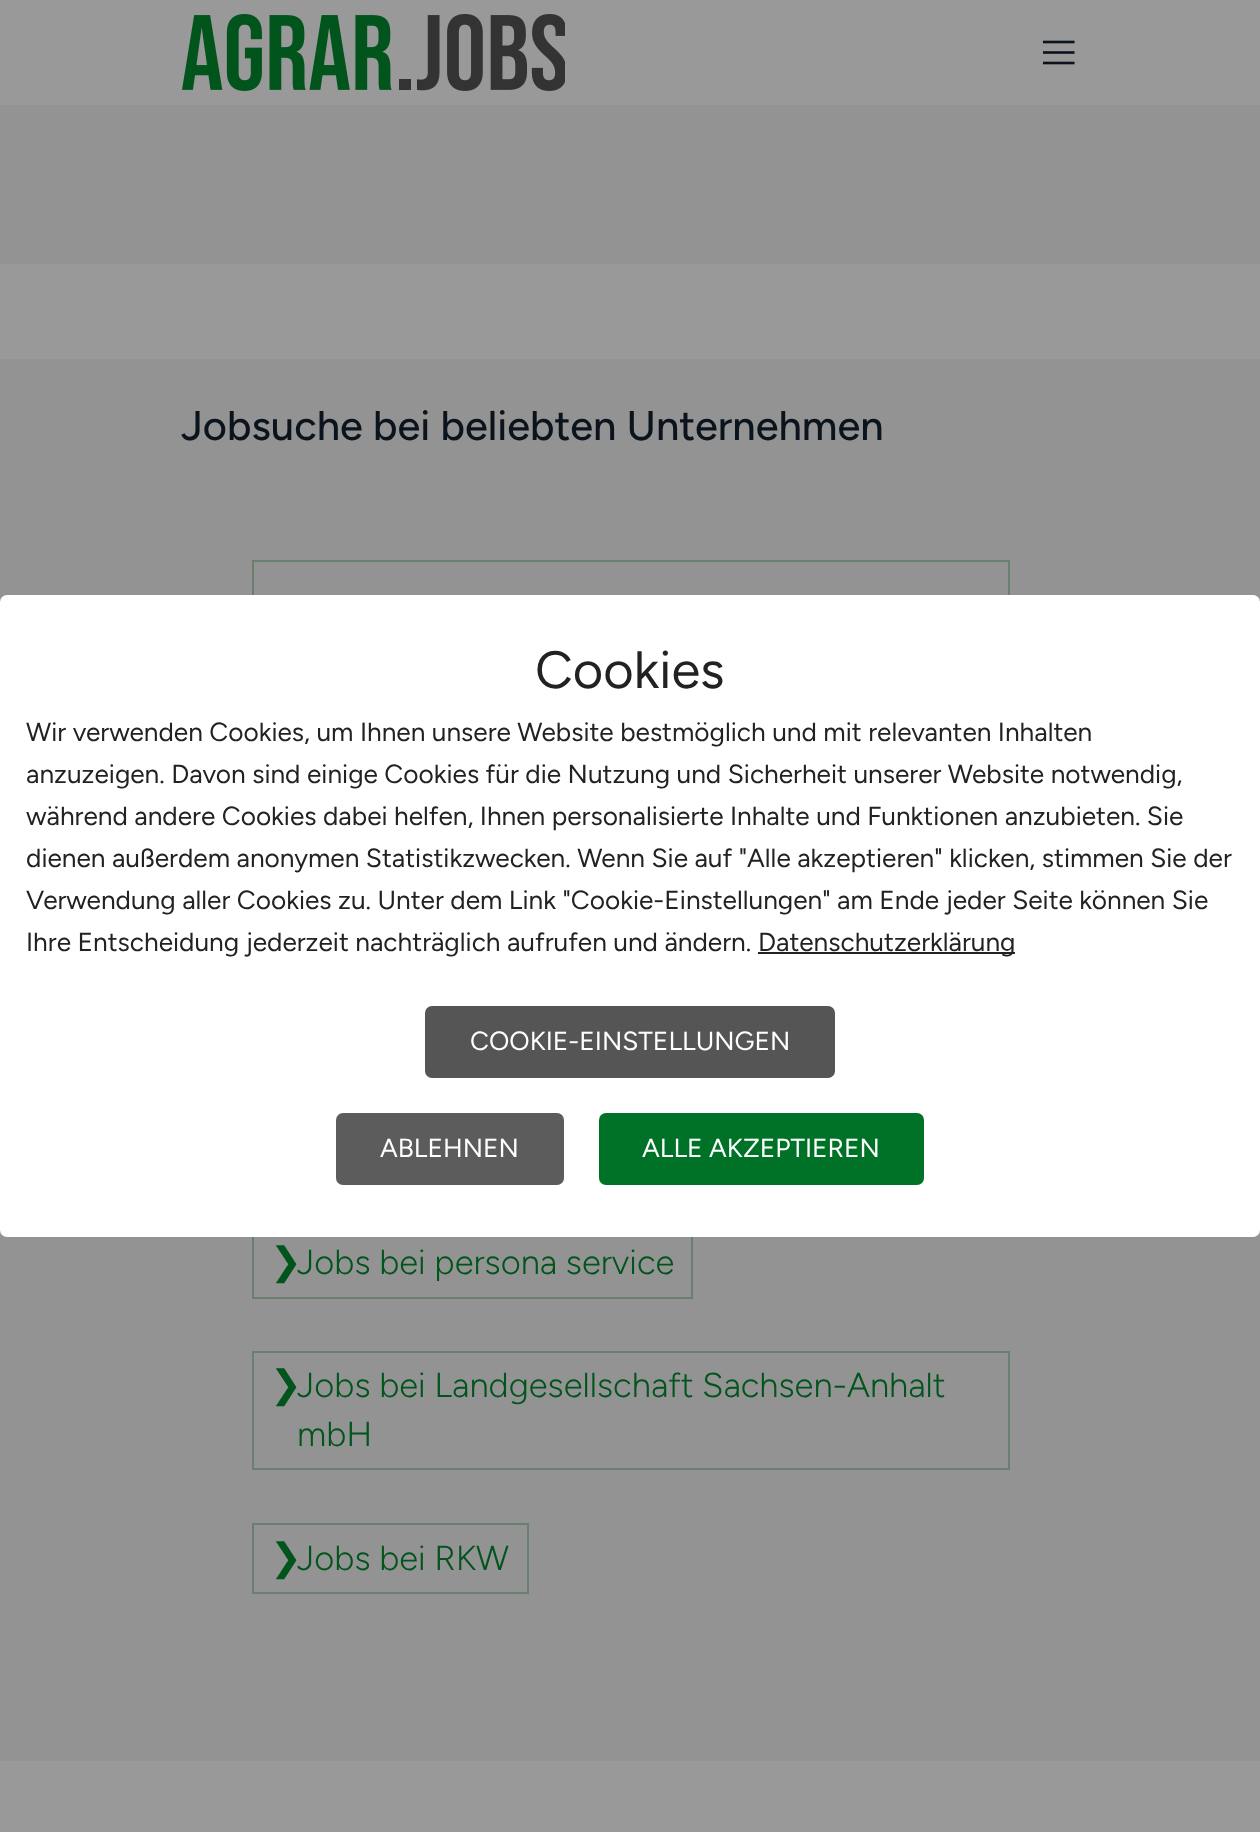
<?xml version="1.0" encoding="UTF-8"?>
<svg xmlns="http://www.w3.org/2000/svg" width="1260" height="1832">
    <rect width="100%" height="100%" fill="#999999"/>
    <image x="182" y="14" width="383" height="77" href="img_01.png"/>
    <image x="1043" y="40" width="32" height="25" href="img_02.png"/>
    <rect x="0" y="105" width="1260" height="159" fill="#939393"/>
    <rect x="0" y="359" width="1260" height="1402" fill="#939393"/>
    <text x="181" y="440" font-family="Figtree" font-size="41.6" font-weight="500" fill="#0B141C">Jobsuche bei beliebten Unternehmen</text>
    <rect x="253" y="561" width="756" height="117" fill="none" stroke="#678070" stroke-width="2"/>
    <rect x="253" y="1228" width="439" height="70" fill="none" stroke="#678070" stroke-width="2"/>
    <text x="297" y="1274" font-family="Figtree" font-size="34.6" font-weight="300" fill="#00541C">Jobs bei persona service</text>
    <text x="270" y="1274" font-family="DejaVu Sans" font-size="38" fill="#00541C">❯</text>
    <rect x="253" y="1352" width="756" height="117" fill="none" stroke="#678070" stroke-width="2"/>
    <text x="297" y="1397" font-family="Figtree" font-size="34.6" font-weight="300" fill="#00541C">Jobs bei Landgesellschaft Sachsen-Anhalt</text>
    <text x="270" y="1397" font-family="DejaVu Sans" font-size="38" fill="#00541C">❯</text>
    <text x="297" y="1446" font-family="Figtree" font-size="34.6" font-weight="300" fill="#00541C">mbH</text>
    <rect x="253" y="1524" width="275" height="69" fill="none" stroke="#678070" stroke-width="2"/>
    <text x="297" y="1570" font-family="Figtree" font-size="34.6" font-weight="300" fill="#00541C">Jobs bei RKW</text>
    <text x="270" y="1570" font-family="DejaVu Sans" font-size="38" fill="#00541C">❯</text>
    <rect x="0" y="595" width="1260" height="642" rx="7" fill="#FFFFFF"/>
    <text x="535" y="688" font-family="Figtree" font-size="52.5" fill="#222222">Cookies</text>
    <text font-family="Figtree" font-size="26.25" fill="#222222">
        <tspan x="26" y="741">Wir verwenden Cookies, um Ihnen unsere Website bestmöglich und mit relevanten Inhalten</tspan>
        <tspan x="26" y="783">anzuzeigen. Davon sind einige Cookies für die Nutzung und Sicherheit unserer Website notwendig,</tspan>
        <tspan x="26" y="825">während andere Cookies dabei helfen, Ihnen personalisierte Inhalte und Funktionen anzubieten. Sie</tspan>
        <tspan x="26" y="867">dienen außerdem anonymen Statistikzwecken. Wenn Sie auf "Alle akzeptieren" klicken, stimmen Sie der</tspan>
        <tspan x="26" y="909">Verwendung aller Cookies zu. Unter dem Link "Cookie-Einstellungen" am Ende jeder Seite können Sie</tspan>
        <tspan x="26" y="951">Ihre Entscheidung jederzeit nachträglich aufrufen und ändern.</tspan>
    </text>
    <rect x="758" y="952" width="257" height="2" fill="#222222"/>
    <text x="758" y="951" font-family="Figtree" font-size="26.25" fill="#222222">Datenschutzerklärung</text>
    <rect x="425" y="1006" width="410" height="72" rx="7" fill="#555555"/>
    <text x="470" y="1050" font-family="Figtree" font-size="26.25" fill="#FFFFFF">COOKIE-EINSTELLUNGEN</text>
    <rect x="336" y="1113" width="228" height="72" rx="7" fill="#5C5C5C"/>
    <text x="380" y="1157" font-family="Figtree" font-size="26.25" fill="#FFFFFF">ABLEHNEN</text>
    <rect x="599" y="1113" width="325" height="72" rx="7" fill="#007227"/>
    <text x="642" y="1157" font-family="Figtree" font-size="26.25" fill="#FFFFFF">ALLE AKZEPTIEREN</text>
</svg>
